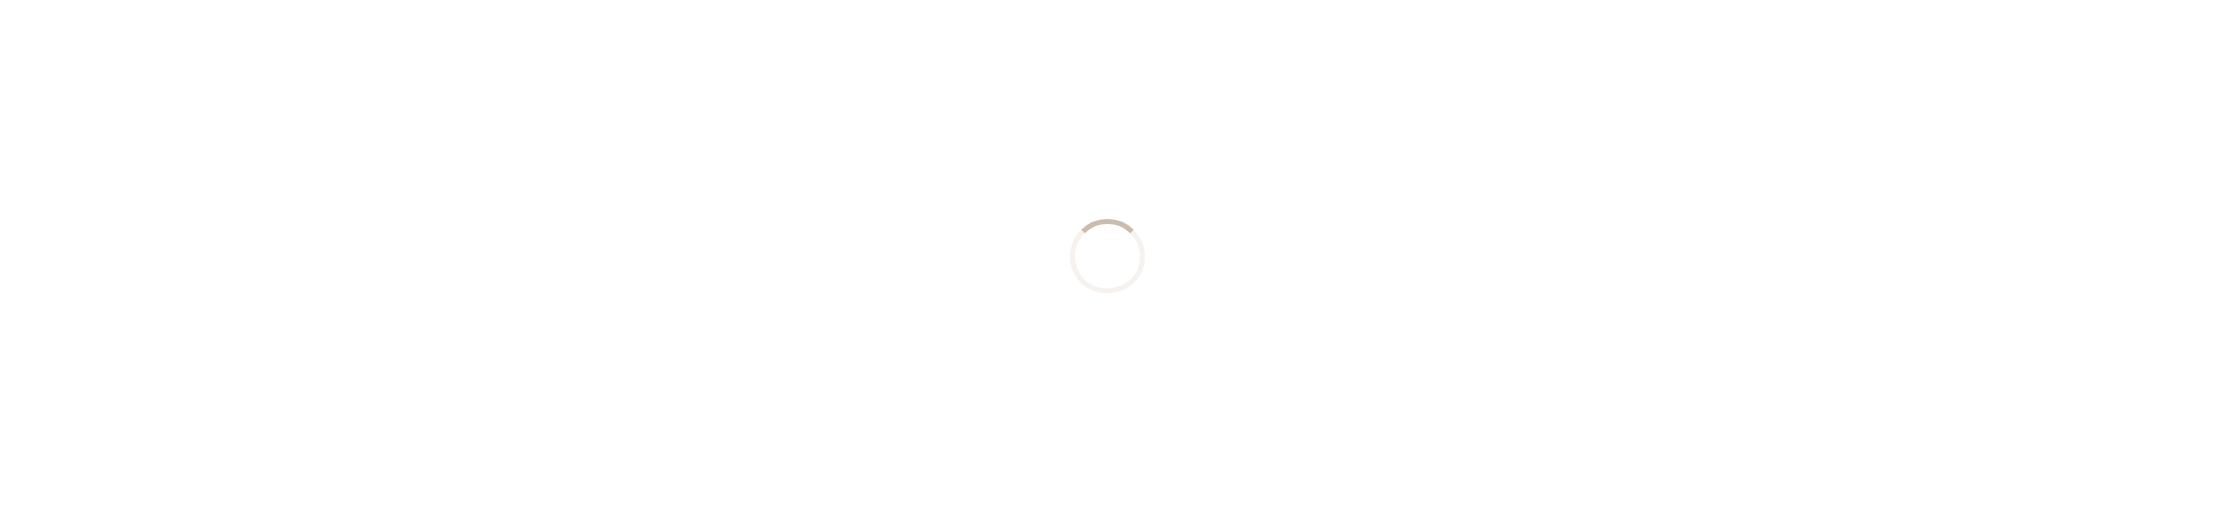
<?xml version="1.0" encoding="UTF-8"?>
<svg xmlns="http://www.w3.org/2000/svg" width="2221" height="519">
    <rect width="100%" height="100%" fill="#FFFFFF"/>
    <path d="M 1083 231.5 C 1096 218 1119 218 1132 231.5" fill="none" stroke="#CBBCAE" stroke-width="5"/>
    <path d="M 1132 231.5 C 1139 238 1142.5 247 1142.5 256 C 1142.5 298 1081.5 304 1073 263 C 1071 251.5 1074.5 239.5 1083 231.5" fill="none" stroke="#CBBCAE" stroke-opacity="0.2" stroke-width="5"/>
</svg>
